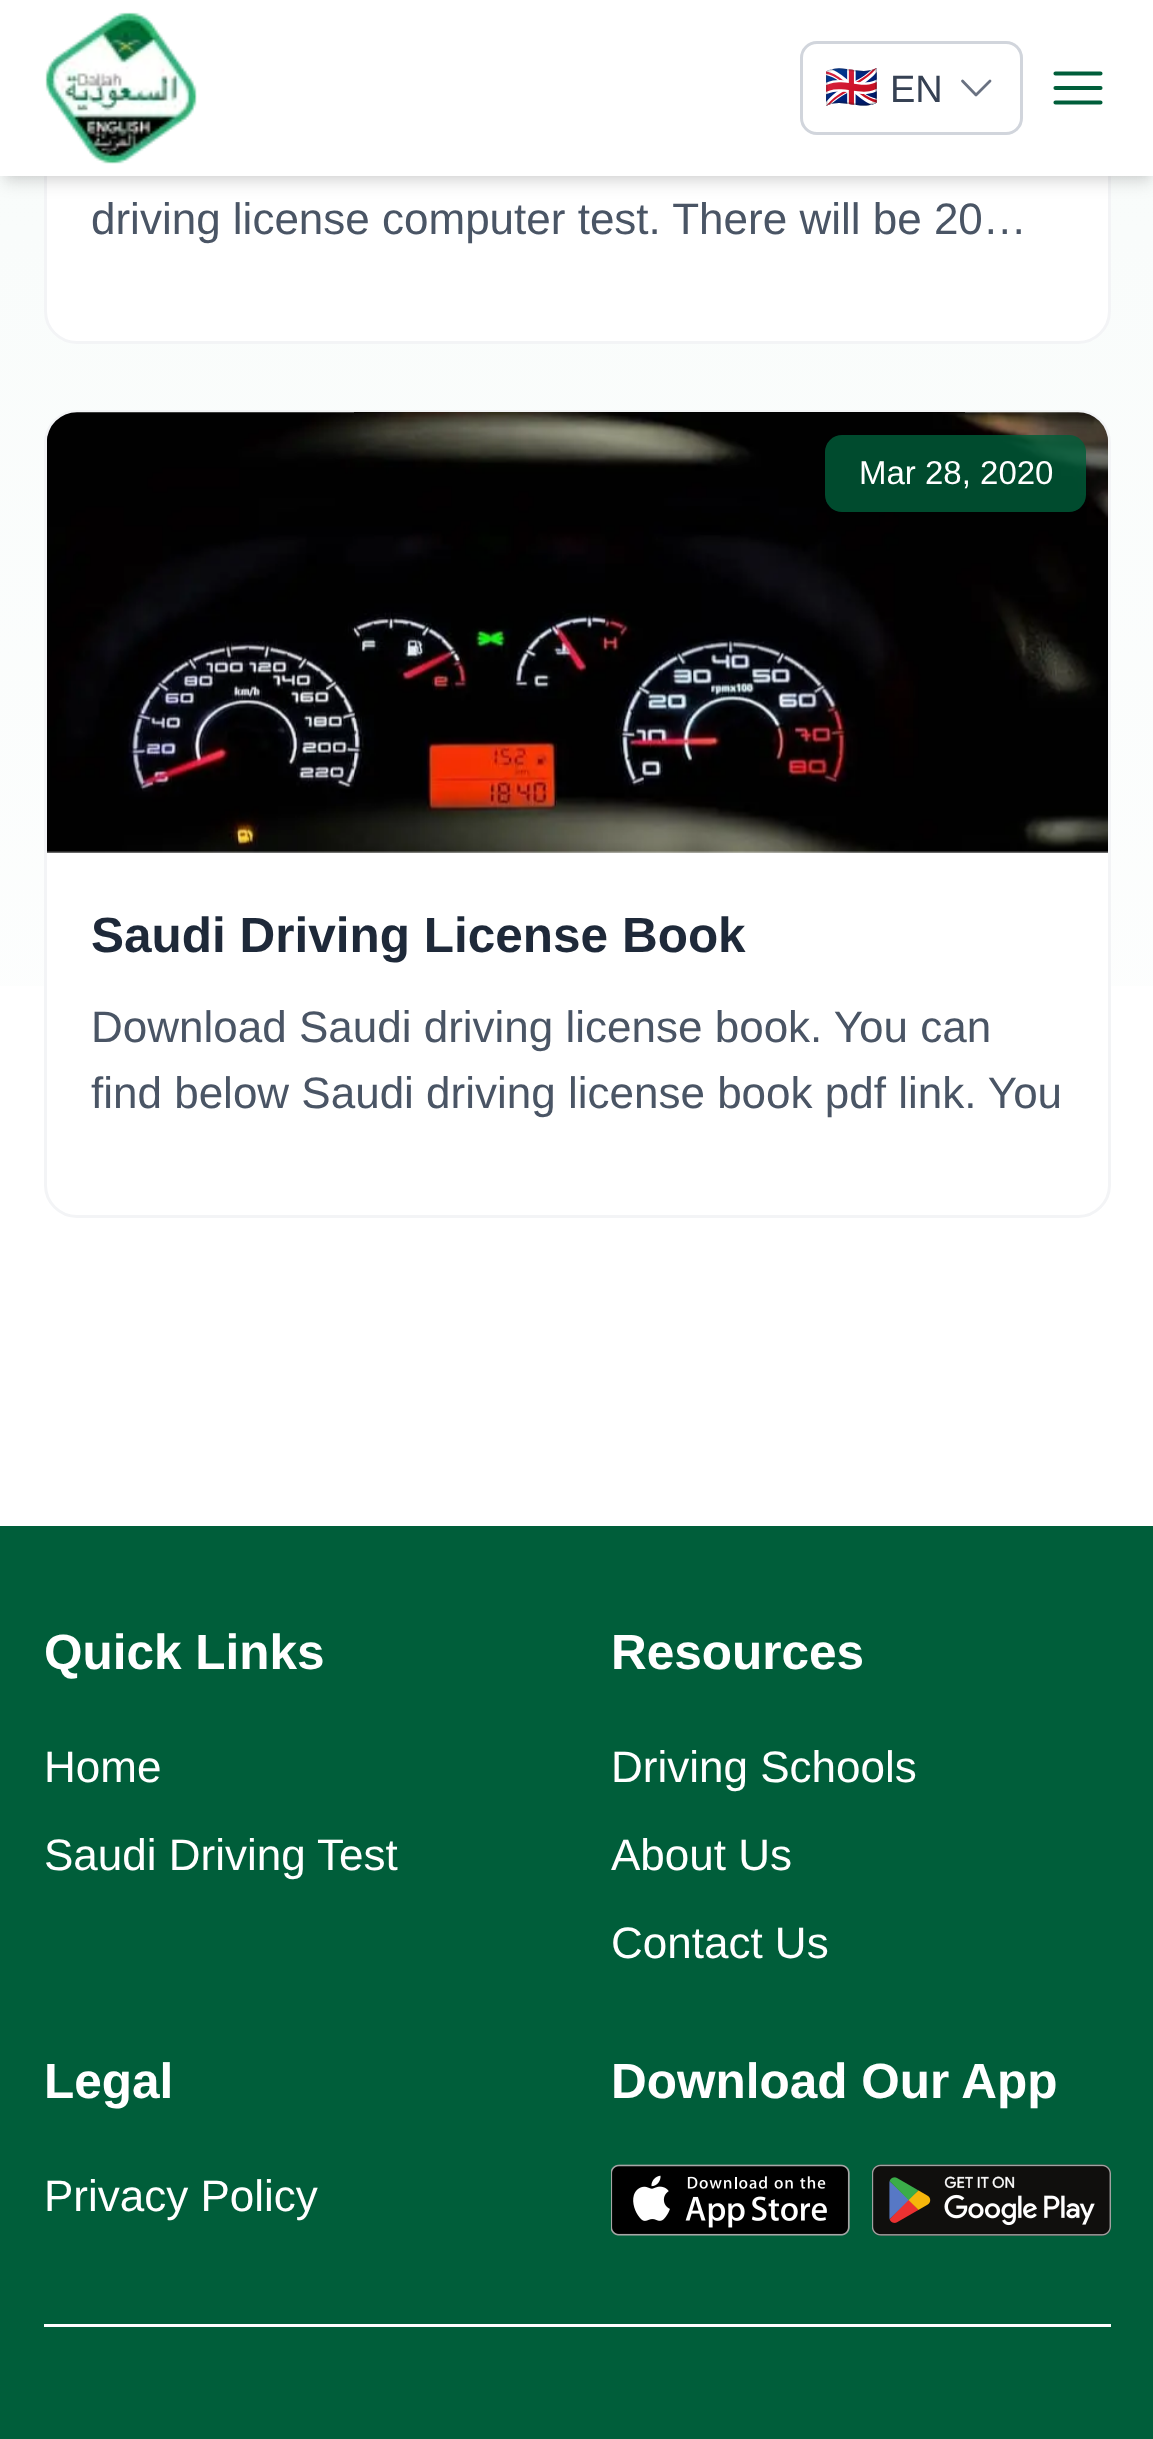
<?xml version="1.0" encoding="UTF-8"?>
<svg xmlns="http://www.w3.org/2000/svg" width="1153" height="2439">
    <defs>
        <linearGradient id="g1" gradientUnits="userSpaceOnUse" x1="577" y1="-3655" x2="578" y2="1526"><stop offset="0" stop-color="#FFFFFF"/><stop offset="0.5" stop-color="#F3F9F7"/><stop offset="1" stop-color="#FFFFFF"/></linearGradient>
        <filter id="blur1" x="-50%" y="-200%" width="200%" height="500%"><feGaussianBlur stdDeviation="5.5"/></filter>
        <filter id="blur2" x="-50%" y="-200%" width="200%" height="500%"><feGaussianBlur stdDeviation="8"/></filter>
    </defs>
    <rect width="100%" height="100%" fill="#FFFFFF"/>
    <rect x="0" y="176" width="1153" height="810" fill="url(#g1)"/>
    <rect x="45.5" y="-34.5" width="1064" height="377" rx="31.5" fill="#FFFFFF" stroke="#F3F4F6" stroke-width="3"/>
    <rect x="6" y="11" width="1144" height="165" fill="#000000" fill-opacity="0.1" filter="url(#blur1)"/>
    <rect x="3" y="14" width="1149" height="170" fill="#000000" fill-opacity="0.1" filter="url(#blur2)"/>
    <rect x="0" y="0" width="1153" height="176" fill="#FFFFFF"/>
    <image x="45" y="12" width="152" height="152" href="img_01.png"/>
    <rect x="801.5" y="42.5" width="220" height="91" rx="15.5" fill="none" stroke="#D1D5DC" stroke-width="3"/>
    <text x="824" y="102" font-family="Noto Color Emoji" font-size="44" fill="#171717">🇬🇧</text>
    <text x="890" y="102" font-family="Liberation Sans" font-size="38" fill="#364153">EN</text>
    <path d="M 990 81 L 976 95 L 962.5 81" fill="none" stroke="#6A7282" stroke-width="2.8" stroke-linecap="round" stroke-linejoin="round"/>
    <path d="M 1055.5 73.5 H 1100.5 M 1055.5 88 H 1100.5 M 1055.5 102.5 H 1100.5" fill="none" stroke="#005E3A" stroke-width="4.1" stroke-linecap="round" stroke-linejoin="round"/>
    <text x="91" y="234" font-family="Liberation Sans" font-size="44" fill="#4A5565">driving license computer test. There will be 20…</text>
    <rect x="45.5" y="411.5" width="1064" height="805" rx="31.5" fill="#FFFFFF" stroke="#F3F4F6" stroke-width="3"/>
    <image x="47" y="412" width="1061" height="441" href="img_02.png"/>
    <rect x="825" y="435" width="261" height="77" rx="17" fill="#005E3A" fill-opacity="0.8"/>
    <text x="859" y="484" font-family="Liberation Sans" font-size="33" fill="#FFFFFF">Mar 28, 2020</text>
    <text x="91" y="952" font-family="Liberation Sans" font-size="49.5" font-weight="700" fill="#1E2939">Saudi Driving License Book</text>
    <text font-family="Liberation Sans" font-size="44" fill="#4A5565">
        <tspan x="91" y="1042">Download Saudi driving license book. You can</tspan>
        <tspan x="91" y="1108">find below Saudi driving license book pdf link. You</tspan>
    </text>
    <rect x="0" y="1526" width="1153" height="913" fill="#005E3A"/>
    <text x="44" y="1669" font-family="Liberation Sans" font-size="49.5" font-weight="700" fill="#FFFFFF">Quick Links</text>
    <text x="44" y="1782" font-family="Liberation Sans" font-size="44" fill="#FFFFFF">Home</text>
    <text x="44" y="1870" font-family="Liberation Sans" font-size="44" fill="#FFFFFF">Saudi Driving Test</text>
    <text x="611" y="1669" font-family="Liberation Sans" font-size="49.5" font-weight="700" fill="#FFFFFF">Resources</text>
    <text x="611" y="1782" font-family="Liberation Sans" font-size="44" fill="#FFFFFF">Driving Schools</text>
    <text x="611" y="1870" font-family="Liberation Sans" font-size="44" fill="#FFFFFF">About Us</text>
    <text x="611" y="1958" font-family="Liberation Sans" font-size="44" fill="#FFFFFF">Contact Us</text>
    <text x="44" y="2098" font-family="Liberation Sans" font-size="49.5" font-weight="700" fill="#FFFFFF">Legal</text>
    <text x="44" y="2211" font-family="Liberation Sans" font-size="44" fill="#FFFFFF">Privacy Policy</text>
    <text x="611" y="2098" font-family="Liberation Sans" font-size="49.5" font-weight="700" fill="#FFFFFF">Download Our App</text>
    <image x="611" y="2164" width="239" height="72" href="img_03.png"/>
    <image x="872" y="2164" width="239" height="72" href="img_04.png"/>
    <rect x="44" y="2324" width="1067" height="3" fill="#FFFFFF"/>
</svg>
